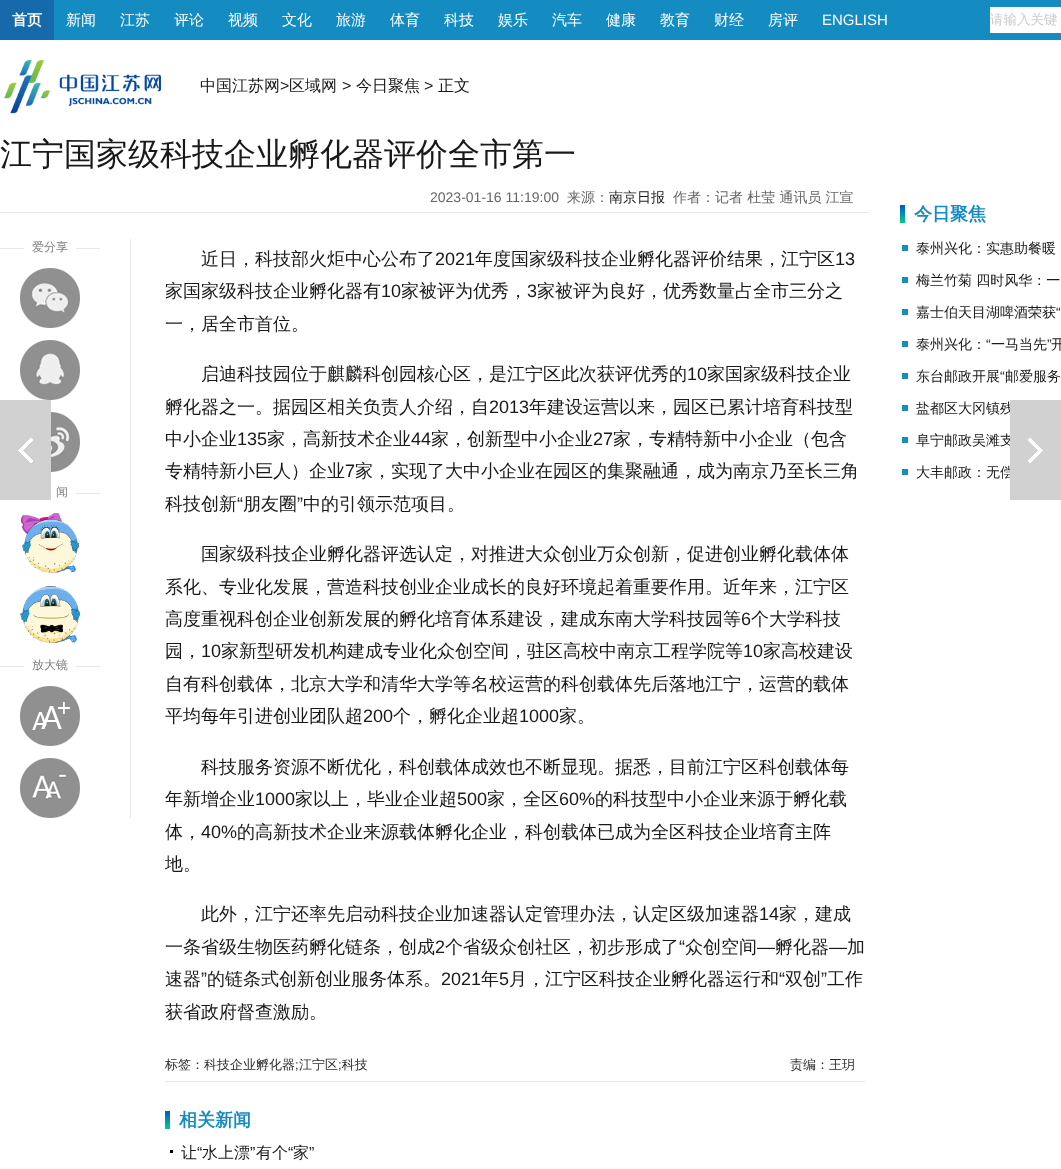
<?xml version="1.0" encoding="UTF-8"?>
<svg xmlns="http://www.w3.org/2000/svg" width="1061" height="1169">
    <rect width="100%" height="100%" fill="#FFFFFF"/>
    <rect x="54" y="0" width="1007" height="40" fill="#148CC1"/>
    <rect x="0" y="0" width="54" height="40" fill="#1669AB"/>
    <text x="12" y="25" font-family="WenQuanYi Zen Hei" font-size="15" font-weight="700" fill="#FFFFFF">首页</text>
    <text x="66" y="25" font-family="WenQuanYi Zen Hei" font-size="15" font-weight="500" fill="#FFFFFF">新闻</text>
    <text x="120" y="25" font-family="WenQuanYi Zen Hei" font-size="15" font-weight="500" fill="#FFFFFF">江苏</text>
    <text x="174" y="25" font-family="WenQuanYi Zen Hei" font-size="15" font-weight="500" fill="#FFFFFF">评论</text>
    <text x="228" y="25" font-family="WenQuanYi Zen Hei" font-size="15" font-weight="500" fill="#FFFFFF">视频</text>
    <text x="282" y="25" font-family="WenQuanYi Zen Hei" font-size="15" font-weight="500" fill="#FFFFFF">文化</text>
    <text x="336" y="25" font-family="WenQuanYi Zen Hei" font-size="15" font-weight="500" fill="#FFFFFF">旅游</text>
    <text x="390" y="25" font-family="WenQuanYi Zen Hei" font-size="15" font-weight="500" fill="#FFFFFF">体育</text>
    <text x="444" y="25" font-family="WenQuanYi Zen Hei" font-size="15" font-weight="500" fill="#FFFFFF">科技</text>
    <text x="498" y="25" font-family="WenQuanYi Zen Hei" font-size="15" font-weight="500" fill="#FFFFFF">娱乐</text>
    <text x="552" y="25" font-family="WenQuanYi Zen Hei" font-size="15" font-weight="500" fill="#FFFFFF">汽车</text>
    <text x="606" y="25" font-family="WenQuanYi Zen Hei" font-size="15" font-weight="500" fill="#FFFFFF">健康</text>
    <text x="660" y="25" font-family="WenQuanYi Zen Hei" font-size="15" font-weight="500" fill="#FFFFFF">教育</text>
    <text x="714" y="25" font-family="WenQuanYi Zen Hei" font-size="15" font-weight="500" fill="#FFFFFF">财经</text>
    <text x="768" y="25" font-family="WenQuanYi Zen Hei" font-size="15" font-weight="500" fill="#FFFFFF">房评</text>
    <text x="822" y="25" font-family="Liberation Sans" font-size="15" fill="#FFFFFF">ENGLISH</text>
    <rect x="990" y="7" width="71" height="26" fill="#FFFFFF"/>
    <text x="990" y="24" font-family="WenQuanYi Zen Hei" font-size="13.5" font-weight="500" fill="#CCCCCC">请输入关键</text>
    <image x="4" y="60" width="157" height="54" href="img_01.png"/>
    <text x="200" y="91" font-family="WenQuanYi Zen Hei" font-size="16" font-weight="500" fill="#191919">中国江苏网</text>
    <text x="280" y="91" font-family="Liberation Sans" font-size="16" fill="#191919">&gt;</text>
    <text x="289" y="91" font-family="WenQuanYi Zen Hei" font-size="16" font-weight="500" fill="#191919">区域网</text>
    <text x="342" y="91" font-family="Liberation Sans" font-size="16" fill="#191919">&gt;</text>
    <text x="356" y="91" font-family="WenQuanYi Zen Hei" font-size="16" font-weight="500" fill="#191919">今日聚焦</text>
    <text x="424" y="91" font-family="Liberation Sans" font-size="16" fill="#191919">&gt;</text>
    <text x="438" y="91" font-family="WenQuanYi Zen Hei" font-size="16" font-weight="500" fill="#191919">正文</text>
    <text x="0" y="165" font-family="WenQuanYi Zen Hei" font-size="32" font-weight="500" fill="#191919">江宁国家级科技企业孵化器评价全市第一</text>
    <rect x="0" y="212" width="870" height="1" fill="#E8E8E8"/>
    <text x="430" y="202" font-family="Liberation Sans" font-size="14" fill="#666666">2023-01-16 11:19:00</text>
    <text x="567" y="202" font-family="WenQuanYi Zen Hei" font-size="14" font-weight="500" fill="#666666">来源：</text>
    <text x="609" y="202" font-family="WenQuanYi Zen Hei" font-size="14" font-weight="500" fill="#191919">南京日报</text>
    <text x="673" y="202" font-family="WenQuanYi Zen Hei" font-size="14" font-weight="500" fill="#666666">作者：记者 杜莹 通讯员 江宣</text>
    <rect x="130" y="239" width="1" height="579" fill="#E8E8E8"/>
    <rect x="0" y="248" width="100" height="1" fill="#E8E8E8"/>
    <rect x="24" y="248" width="52" height="1" fill="#FFFFFF"/>
    <text x="32" y="251" font-family="WenQuanYi Zen Hei" font-size="12" font-weight="500" fill="#808080">爱分享</text>
    <image x="20" y="268" width="60" height="60" href="img_02.png"/>
    <image x="20" y="340" width="60" height="60" href="img_03.png"/>
    <image x="51" y="412" width="29" height="60" href="img_04.png"/>
    <text x="56" y="496" font-family="WenQuanYi Zen Hei" font-size="12" font-weight="500" fill="#808080">闻</text>
    <rect x="76" y="493" width="24" height="1" fill="#E8E8E8"/>
    <image x="21" y="513" width="58" height="60" href="img_05.png"/>
    <image x="20" y="586" width="60" height="57" href="img_06.png"/>
    <rect x="0" y="666" width="100" height="1" fill="#E8E8E8"/>
    <rect x="24" y="666" width="52" height="1" fill="#FFFFFF"/>
    <text x="32" y="669" font-family="WenQuanYi Zen Hei" font-size="12" font-weight="500" fill="#808080">放大镜</text>
    <image x="20" y="686" width="60" height="60" href="img_07.png"/>
    <image x="20" y="758" width="60" height="60" href="img_08.png"/>
    <text x="201" y="265" font-family="WenQuanYi Zen Hei" font-size="18" font-weight="500" fill="#191919">近日，科技部火炬中心公布了</text>
    <text x="435" y="265" font-family="Liberation Sans" font-size="18" fill="#191919">2021</text>
    <text x="475" y="265" font-family="WenQuanYi Zen Hei" font-size="18" font-weight="500" fill="#191919">年度国家级科技企业孵化器评价结果，江宁区</text>
    <text x="835" y="265" font-family="Liberation Sans" font-size="18" fill="#191919">13</text>
    <text x="165" y="297" font-family="WenQuanYi Zen Hei" font-size="18" font-weight="500" fill="#191919">家国家级科技企业孵化器有</text>
    <text x="381" y="297" font-family="Liberation Sans" font-size="18" fill="#191919">10</text>
    <text x="401" y="297" font-family="WenQuanYi Zen Hei" font-size="18" font-weight="500" fill="#191919">家被评为优秀，</text>
    <text x="527" y="297" font-family="Liberation Sans" font-size="18" fill="#191919">3</text>
    <text x="537" y="297" font-family="WenQuanYi Zen Hei" font-size="18" font-weight="500" fill="#191919">家被评为良好，优秀数量占全市三分之</text>
    <text x="165" y="330" font-family="WenQuanYi Zen Hei" font-size="18" font-weight="500" fill="#191919">一，居全市首位。</text>
    <text x="201" y="380" font-family="WenQuanYi Zen Hei" font-size="18" font-weight="500" fill="#191919">启迪科技园位于麒麟科创园核心区，是江宁区此次获评优秀的</text>
    <text x="687" y="380" font-family="Liberation Sans" font-size="18" fill="#191919">10</text>
    <text x="707" y="380" font-family="WenQuanYi Zen Hei" font-size="18" font-weight="500" fill="#191919">家国家级科技企业</text>
    <text x="165" y="413" font-family="WenQuanYi Zen Hei" font-size="18" font-weight="500" fill="#191919">孵化器之一。据园区相关负责人介绍，自</text>
    <text x="489" y="413" font-family="Liberation Sans" font-size="18" fill="#191919">2013</text>
    <text x="529" y="413" font-family="WenQuanYi Zen Hei" font-size="18" font-weight="500" fill="#191919">年建设运营以来，园区已累计培育科技型</text>
    <text x="165" y="445" font-family="WenQuanYi Zen Hei" font-size="18" font-weight="500" fill="#191919">中小企业</text>
    <text x="237" y="445" font-family="Liberation Sans" font-size="18" fill="#191919">135</text>
    <text x="267" y="445" font-family="WenQuanYi Zen Hei" font-size="18" font-weight="500" fill="#191919">家，高新技术企业</text>
    <text x="411" y="445" font-family="Liberation Sans" font-size="18" fill="#191919">44</text>
    <text x="431" y="445" font-family="WenQuanYi Zen Hei" font-size="18" font-weight="500" fill="#191919">家，创新型中小企业</text>
    <text x="593" y="445" font-family="Liberation Sans" font-size="18" fill="#191919">27</text>
    <text x="613" y="445" font-family="WenQuanYi Zen Hei" font-size="18" font-weight="500" fill="#191919">家，专精特新中小企业（包含</text>
    <text x="165" y="477" font-family="WenQuanYi Zen Hei" font-size="18" font-weight="500" fill="#191919">专精特新小巨人）企业</text>
    <text x="345" y="477" font-family="Liberation Sans" font-size="18" fill="#191919">7</text>
    <text x="355" y="477" font-family="WenQuanYi Zen Hei" font-size="18" font-weight="500" fill="#191919">家，实现了大中小企业在园区的集聚融通，成为南京乃至长三角</text>
    <text x="165" y="510" font-family="WenQuanYi Zen Hei" font-size="18" font-weight="500" fill="#191919">科技创新</text>
    <text x="237" y="510" font-family="Liberation Sans" font-size="18" fill="#191919">“</text>
    <text x="243" y="510" font-family="WenQuanYi Zen Hei" font-size="18" font-weight="500" fill="#191919">朋友圈</text>
    <text x="297" y="510" font-family="Liberation Sans" font-size="18" fill="#191919">”</text>
    <text x="303" y="510" font-family="WenQuanYi Zen Hei" font-size="18" font-weight="500" fill="#191919">中的引领示范项目。</text>
    <text x="201" y="560" font-family="WenQuanYi Zen Hei" font-size="18" font-weight="500" fill="#191919">国家级科技企业孵化器评选认定，对推进大众创业万众创新，促进创业孵化载体体</text>
    <text font-family="WenQuanYi Zen Hei" font-size="18" font-weight="500" fill="#191919">
        <tspan x="165" y="593">系化、专业化发展，营造科技创业企业成长的良好环境起着重要作用。近年来，江宁区</tspan>
        <tspan x="165" y="625">高度重视科创企业创新发展的孵化培育体系建设，建成东南大学科技园等</tspan>
    </text>
    <text x="741" y="625" font-family="Liberation Sans" font-size="18" fill="#191919">6</text>
    <text x="751" y="625" font-family="WenQuanYi Zen Hei" font-size="18" font-weight="500" fill="#191919">个大学科技</text>
    <text x="165" y="657" font-family="WenQuanYi Zen Hei" font-size="18" font-weight="500" fill="#191919">园，</text>
    <text x="201" y="657" font-family="Liberation Sans" font-size="18" fill="#191919">10</text>
    <text x="221" y="657" font-family="WenQuanYi Zen Hei" font-size="18" font-weight="500" fill="#191919">家新型研发机构建成专业化众创空间，驻区高校中南京工程学院等</text>
    <text x="743" y="657" font-family="Liberation Sans" font-size="18" fill="#191919">10</text>
    <text x="763" y="657" font-family="WenQuanYi Zen Hei" font-size="18" font-weight="500" fill="#191919">家高校建设</text>
    <text font-family="WenQuanYi Zen Hei" font-size="18" font-weight="500" fill="#191919">
        <tspan x="165" y="690">自有科创载体，北京大学和清华大学等名校运营的科创载体先后落地江宁，运营的载体</tspan>
        <tspan x="165" y="722">平均每年引进创业团队超</tspan>
    </text>
    <text x="363" y="722" font-family="Liberation Sans" font-size="18" fill="#191919">200</text>
    <text x="393" y="722" font-family="WenQuanYi Zen Hei" font-size="18" font-weight="500" fill="#191919">个，孵化企业超</text>
    <text x="519" y="722" font-family="Liberation Sans" font-size="18" fill="#191919">1000</text>
    <text x="559" y="722" font-family="WenQuanYi Zen Hei" font-size="18" font-weight="500" fill="#191919">家。</text>
    <text x="201" y="773" font-family="WenQuanYi Zen Hei" font-size="18" font-weight="500" fill="#191919">科技服务资源不断优化，科创载体成效也不断显现。据悉，目前江宁区科创载体每</text>
    <text x="165" y="805" font-family="WenQuanYi Zen Hei" font-size="18" font-weight="500" fill="#191919">年新增企业</text>
    <text x="255" y="805" font-family="Liberation Sans" font-size="18" fill="#191919">1000</text>
    <text x="295" y="805" font-family="WenQuanYi Zen Hei" font-size="18" font-weight="500" fill="#191919">家以上，毕业企业超</text>
    <text x="457" y="805" font-family="Liberation Sans" font-size="18" fill="#191919">500</text>
    <text x="487" y="805" font-family="WenQuanYi Zen Hei" font-size="18" font-weight="500" fill="#191919">家，全区</text>
    <text x="559" y="805" font-family="Liberation Sans" font-size="18" fill="#191919">60%</text>
    <text x="595" y="805" font-family="WenQuanYi Zen Hei" font-size="18" font-weight="500" fill="#191919">的科技型中小企业来源于孵化载</text>
    <text x="165" y="838" font-family="WenQuanYi Zen Hei" font-size="18" font-weight="500" fill="#191919">体，</text>
    <text x="201" y="838" font-family="Liberation Sans" font-size="18" fill="#191919">40%</text>
    <text x="237" y="838" font-family="WenQuanYi Zen Hei" font-size="18" font-weight="500" fill="#191919">的高新技术企业来源载体孵化企业，科创载体已成为全区科技企业培育主阵</text>
    <text x="165" y="870" font-family="WenQuanYi Zen Hei" font-size="18" font-weight="500" fill="#191919">地。</text>
    <text x="201" y="920" font-family="WenQuanYi Zen Hei" font-size="18" font-weight="500" fill="#191919">此外，江宁还率先启动科技企业加速器认定管理办法，认定区级加速器</text>
    <text x="759" y="920" font-family="Liberation Sans" font-size="18" fill="#191919">14</text>
    <text x="779" y="920" font-family="WenQuanYi Zen Hei" font-size="18" font-weight="500" fill="#191919">家，建成</text>
    <text x="165" y="953" font-family="WenQuanYi Zen Hei" font-size="18" font-weight="500" fill="#191919">一条省级生物医药孵化链条，创成</text>
    <text x="435" y="953" font-family="Liberation Sans" font-size="18" fill="#191919">2</text>
    <text x="445" y="953" font-family="WenQuanYi Zen Hei" font-size="18" font-weight="500" fill="#191919">个省级众创社区，初步形成了</text>
    <text x="679" y="953" font-family="Liberation Sans" font-size="18" fill="#191919">“</text>
    <text x="685" y="953" font-family="WenQuanYi Zen Hei" font-size="18" font-weight="500" fill="#191919">众创空间</text>
    <text x="757" y="953" font-family="Liberation Sans" font-size="18" fill="#191919">—</text>
    <text x="775" y="953" font-family="WenQuanYi Zen Hei" font-size="18" font-weight="500" fill="#191919">孵化器</text>
    <text x="829" y="953" font-family="Liberation Sans" font-size="18" fill="#191919">—</text>
    <text x="847" y="953" font-family="WenQuanYi Zen Hei" font-size="18" font-weight="500" fill="#191919">加</text>
    <text x="165" y="985" font-family="WenQuanYi Zen Hei" font-size="18" font-weight="500" fill="#191919">速器</text>
    <text x="201" y="985" font-family="Liberation Sans" font-size="18" fill="#191919">”</text>
    <text x="207" y="985" font-family="WenQuanYi Zen Hei" font-size="18" font-weight="500" fill="#191919">的链条式创新创业服务体系。</text>
    <text x="441" y="985" font-family="Liberation Sans" font-size="18" fill="#191919">2021</text>
    <text x="481" y="985" font-family="WenQuanYi Zen Hei" font-size="18" font-weight="500" fill="#191919">年</text>
    <text x="499" y="985" font-family="Liberation Sans" font-size="18" fill="#191919">5</text>
    <text x="509" y="985" font-family="WenQuanYi Zen Hei" font-size="18" font-weight="500" fill="#191919">月，江宁区科技企业孵化器运行和</text>
    <text x="779" y="985" font-family="Liberation Sans" font-size="18" fill="#191919">“</text>
    <text x="785" y="985" font-family="WenQuanYi Zen Hei" font-size="18" font-weight="500" fill="#191919">双创</text>
    <text x="821" y="985" font-family="Liberation Sans" font-size="18" fill="#191919">”</text>
    <text x="827" y="985" font-family="WenQuanYi Zen Hei" font-size="18" font-weight="500" fill="#191919">工作</text>
    <text x="165" y="1018" font-family="WenQuanYi Zen Hei" font-size="18" font-weight="500" fill="#191919">获省政府督查激励。</text>
    <rect x="165" y="1081" width="700" height="1" fill="#E8E8E8"/>
    <text x="165" y="1069" font-family="WenQuanYi Zen Hei" font-size="13" font-weight="500" fill="#2C2C2C">标签：科技企业孵化器 江宁区 科技</text>
    <text x="295" y="1069" font-family="Liberation Sans" font-size="13" fill="#2C2C2C">;</text>
    <text x="338" y="1069" font-family="Liberation Sans" font-size="13" fill="#2C2C2C">;</text>
    <text x="790" y="1069" font-family="WenQuanYi Zen Hei" font-size="13" font-weight="500" fill="#2C2C2C">责编：王玥</text>
    <image x="165" y="1111" width="5" height="18" href="img_09.png"/>
    <text x="179" y="1126" font-family="WenQuanYi Zen Hei" font-size="18" font-weight="700" fill="#148CC1">相关新闻</text>
    <rect x="170" y="1150" width="3" height="3" fill="#000000"/>
    <text x="181" y="1158" font-family="WenQuanYi Zen Hei" font-size="16" font-weight="500" fill="#191919">让</text>
    <text x="197" y="1158" font-family="Liberation Sans" font-size="16" fill="#191919">“</text>
    <text x="202" y="1158" font-family="WenQuanYi Zen Hei" font-size="16" font-weight="500" fill="#191919">水上漂</text>
    <text x="250" y="1158" font-family="Liberation Sans" font-size="16" fill="#191919">”</text>
    <text x="256" y="1158" font-family="WenQuanYi Zen Hei" font-size="16" font-weight="500" fill="#191919">有个</text>
    <text x="288" y="1158" font-family="Liberation Sans" font-size="16" fill="#191919">“</text>
    <text x="293" y="1158" font-family="WenQuanYi Zen Hei" font-size="16" font-weight="500" fill="#191919">家</text>
    <text x="309" y="1158" font-family="Liberation Sans" font-size="16" fill="#191919">”</text>
    <image x="900" y="205" width="5" height="18" href="img_09.png"/>
    <text x="914" y="220" font-family="WenQuanYi Zen Hei" font-size="18" font-weight="700" fill="#148CC1">今日聚焦</text>
    <rect x="902" y="245" width="6" height="6" fill="#148CC1"/>
    <text x="916" y="253" font-family="WenQuanYi Zen Hei" font-size="14" font-weight="500" fill="#191919">泰州兴化：实惠助餐暖</text>
    <rect x="902" y="277" width="6" height="6" fill="#148CC1"/>
    <text x="916" y="285" font-family="WenQuanYi Zen Hei" font-size="14" font-weight="500" fill="#191919">梅兰竹菊 四时风华：一</text>
    <rect x="902" y="309" width="6" height="6" fill="#148CC1"/>
    <text x="916" y="317" font-family="WenQuanYi Zen Hei" font-size="14" font-weight="500" fill="#191919">嘉士伯天目湖啤酒荣获</text>
    <text x="1056" y="317" font-family="Liberation Sans" font-size="14" fill="#191919">“</text>
    <rect x="902" y="341" width="6" height="6" fill="#148CC1"/>
    <text x="916" y="349" font-family="WenQuanYi Zen Hei" font-size="14" font-weight="500" fill="#191919">泰州兴化：</text>
    <text x="986" y="349" font-family="Liberation Sans" font-size="14" fill="#191919">“</text>
    <text x="991" y="349" font-family="WenQuanYi Zen Hei" font-size="14" font-weight="500" fill="#191919">一马当先</text>
    <text x="1047" y="349" font-family="Liberation Sans" font-size="14" fill="#191919">”</text>
    <text x="1051" y="349" font-family="WenQuanYi Zen Hei" font-size="14" font-weight="500" fill="#191919">开</text>
    <rect x="902" y="373" width="6" height="6" fill="#148CC1"/>
    <text x="916" y="381" font-family="WenQuanYi Zen Hei" font-size="14" font-weight="500" fill="#191919">东台邮政开展</text>
    <text x="1000" y="381" font-family="Liberation Sans" font-size="14" fill="#191919">“</text>
    <text x="1005" y="381" font-family="WenQuanYi Zen Hei" font-size="14" font-weight="500" fill="#191919">邮爱服务</text>
    <rect x="902" y="405" width="6" height="6" fill="#148CC1"/>
    <text x="916" y="413" font-family="WenQuanYi Zen Hei" font-size="14" font-weight="500" fill="#191919">盐都区大冈镇残</text>
    <rect x="902" y="437" width="6" height="6" fill="#148CC1"/>
    <text x="916" y="445" font-family="WenQuanYi Zen Hei" font-size="14" font-weight="500" fill="#191919">阜宁邮政吴滩支</text>
    <rect x="902" y="469" width="6" height="6" fill="#148CC1"/>
    <text x="916" y="477" font-family="WenQuanYi Zen Hei" font-size="14" font-weight="500" fill="#191919">大丰邮政：无偿</text>
    <image x="0" y="400" width="51" height="100" href="img_10.png"/>
    <image x="1010" y="400" width="51" height="100" href="img_11.png"/>
</svg>
